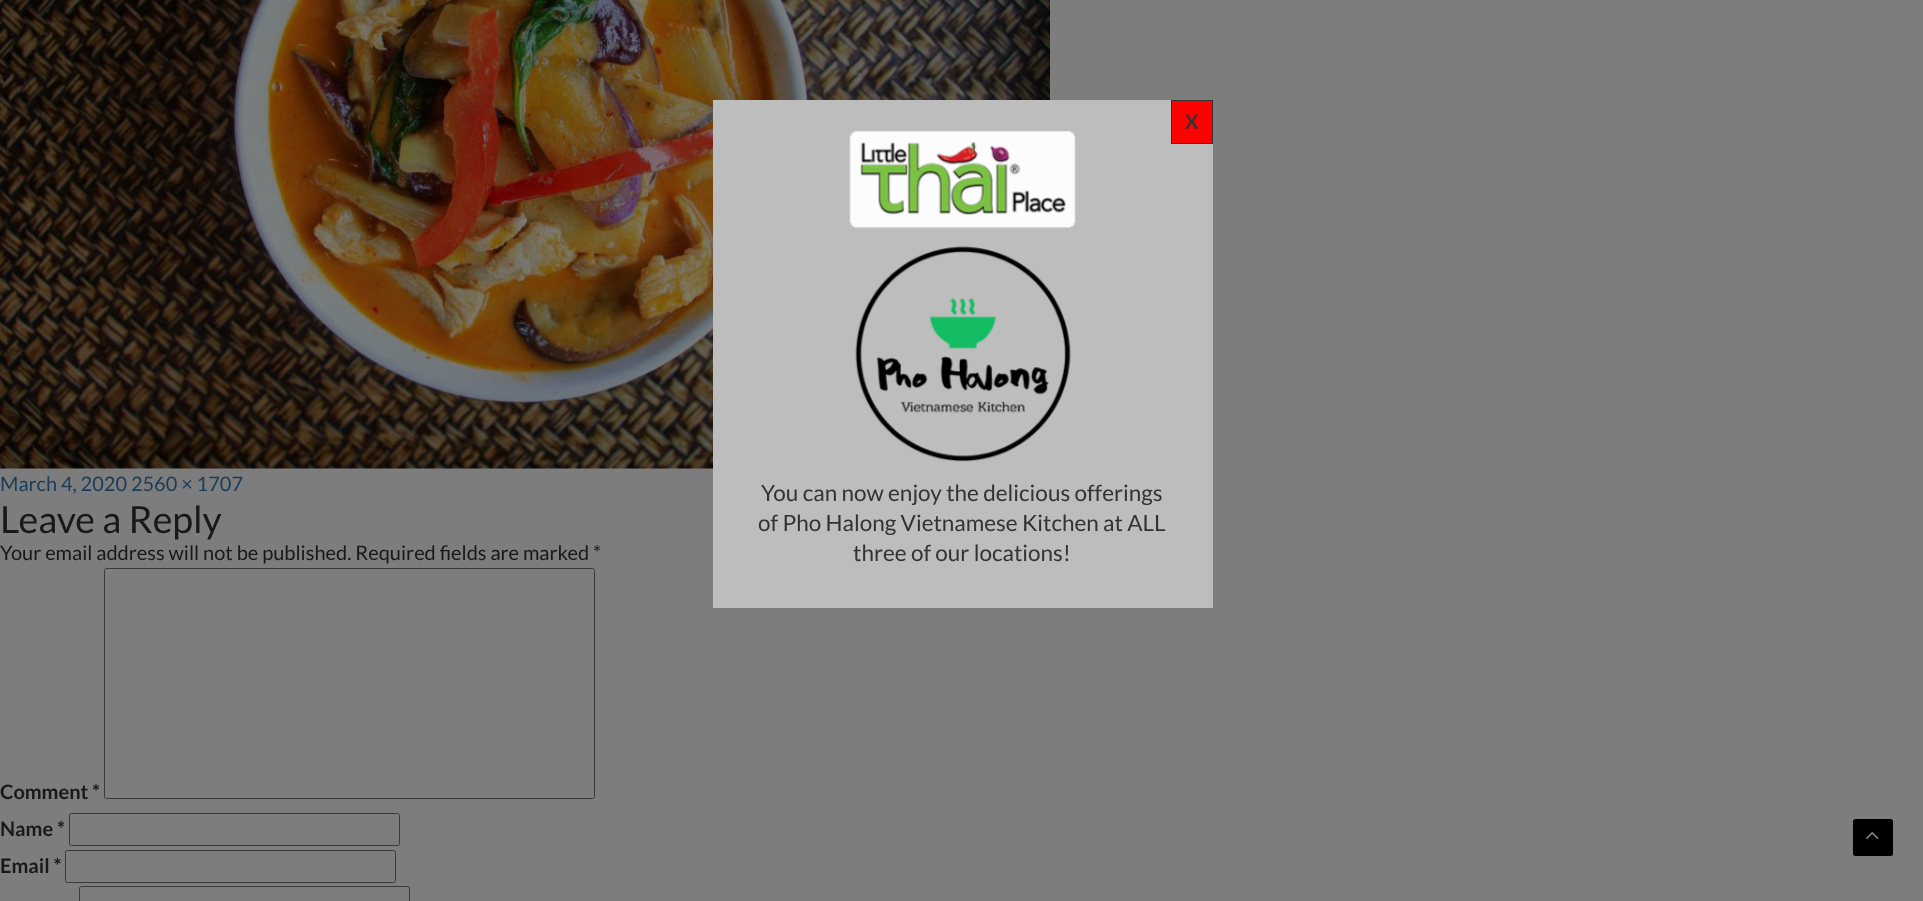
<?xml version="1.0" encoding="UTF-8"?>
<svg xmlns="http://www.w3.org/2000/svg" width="1923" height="901">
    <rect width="100%" height="100%" fill="#7D7D7D"/>
    <image x="0" y="0" width="1050" height="469" href="img_03.png"/>
    <rect x="713" y="100" width="500" height="508" fill="#BDBDBD"/>
    <rect x="1171.5" y="100.5" width="41" height="43" fill="#FF0000" stroke="#333333"/>
    <text x="1185" y="129" font-family="Lato" font-size="20" font-weight="700" fill="#333333">X</text>
    <image x="849" y="131" width="227" height="97" href="img_01.png"/>
    <image x="855" y="246" width="216" height="216" href="img_02.png"/>
    <text x="761" y="501" font-family="Lato" font-size="22.5" fill="#333333">You can now enjoy the delicious offerings</text>
    <text x="758" y="531" font-family="Lato" font-size="22.5" fill="#333333">of Pho Halong Vietnamese Kitchen at ALL</text>
    <text x="853" y="561" font-family="Lato" font-size="22.5" fill="#333333">three of our locations!</text>
    <text x="0" y="491" font-family="Lato" font-size="20" fill="#193C5A">March 4, 2020 2560 × 1707</text>
    <text x="0" y="533" font-family="Lato" font-size="37.5" fill="#191919">Leave a Reply</text>
    <text x="0" y="560" font-family="Lato" font-size="20" fill="#191919">Your email address will not be published. Required fields are marked *</text>
    <text x="0" y="799" font-family="Lato" font-size="20" font-weight="700" fill="#191919">Comment *</text>
    <rect x="104.5" y="568.5" width="490" height="230" rx="2" fill="none" stroke="#3A3A3A"/>
    <text x="0" y="836" font-family="Lato" font-size="20" font-weight="700" fill="#191919">Name *</text>
    <rect x="69.5" y="813.5" width="330" height="32" rx="2" fill="none" stroke="#3A3A3A"/>
    <text x="0" y="873" font-family="Lato" font-size="20" font-weight="700" fill="#191919">Email *</text>
    <rect x="65.5" y="850.5" width="330" height="32" rx="2" fill="none" stroke="#3A3A3A"/>
    <rect x="79.5" y="886.5" width="330" height="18" rx="2" fill="none" stroke="#3A3A3A"/>
    <rect x="1853" y="819" width="40" height="37" rx="2.5" fill="#000000"/>
    <image x="1866" y="831" width="13" height="9" href="img_04.png"/>
</svg>
